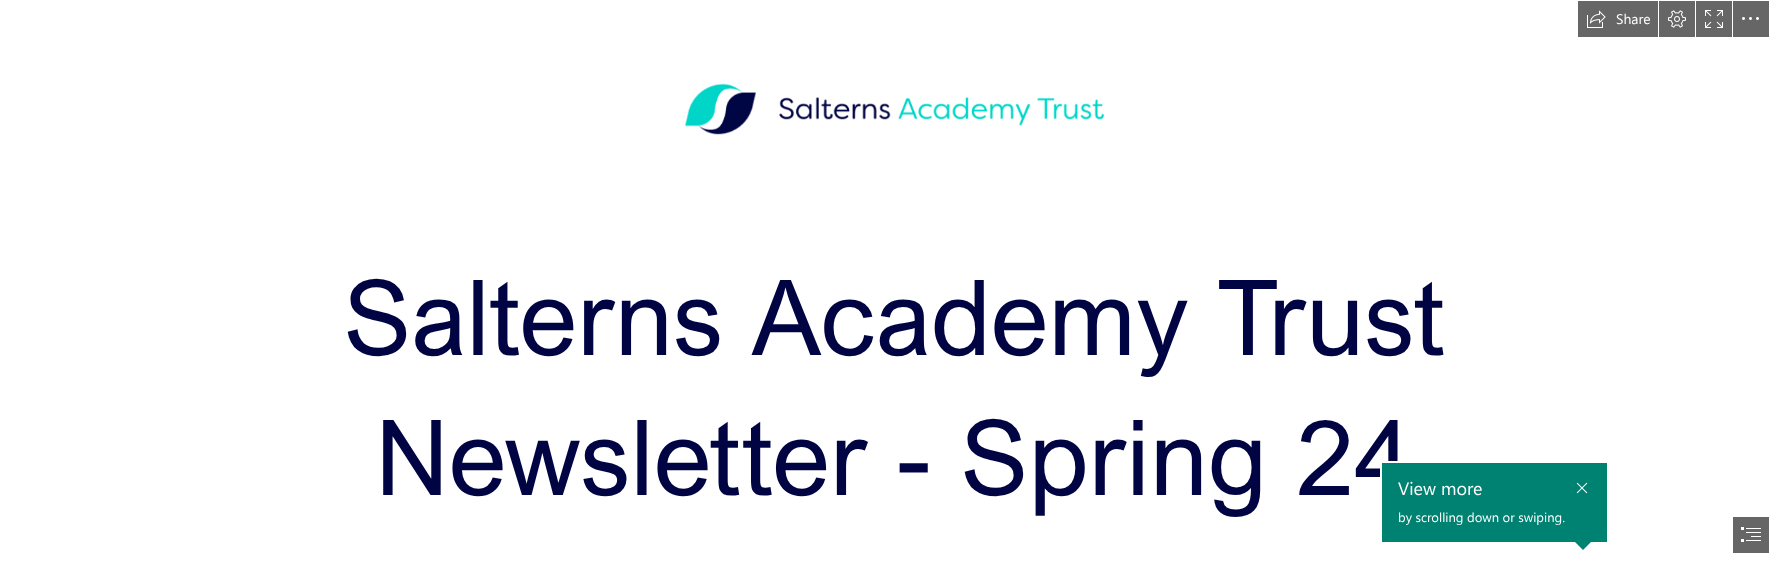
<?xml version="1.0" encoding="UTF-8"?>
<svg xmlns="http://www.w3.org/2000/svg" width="1789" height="574">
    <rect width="100%" height="100%" fill="#FFFFFF"/>
    <rect x="1578" y="1" width="80" height="36" fill="#666666"/>
    <image x="1587" y="10" width="19" height="18" href="img_01.png"/>
    <text x="1616" y="24" font-family="Segoe UI" font-size="14" fill="#FFFFFF">Share</text>
    <rect x="1659" y="1" width="36" height="36" fill="#666666"/>
    <image x="1668" y="10" width="18" height="18" href="img_02.png"/>
    <rect x="1696" y="1" width="36" height="36" fill="#666666"/>
    <image x="1705" y="10" width="18" height="18" href="img_03.png"/>
    <rect x="1733" y="1" width="36" height="36" fill="#666666"/>
    <image x="1742" y="17" width="17" height="3" href="img_04.png"/>
    <image x="684" y="83" width="420" height="52" href="img_05.png"/>
    <text x="343" y="355" font-family="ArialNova" font-size="104.75" fill="#000443">Salterns Academy Trust</text>
    <text x="375" y="495" font-family="ArialNova" font-size="104.75" fill="#000443">Newsletter - Spring 24</text>
    <rect x="1381" y="462" width="227" height="81" fill="#008272" stroke="#FFFFFF" stroke-width="2"/>
    <text x="1398" y="495" font-family="Segoe UI" font-size="18" fill="#FFFFFF">View more</text>
    <text x="1398" y="522" font-family="Segoe UI" font-size="13" fill="#FFFFFF">by scrolling down or swiping.</text>
    <image x="1576" y="482" width="12" height="12" href="img_06.png"/>
    <path d="M 1575 542 H 1591 L 1583 550 Z" fill="#008272"/>
    <rect x="1733" y="517" width="36" height="36" fill="#666666"/>
    <image x="1741" y="527" width="20" height="15" href="img_07.png"/>
</svg>
